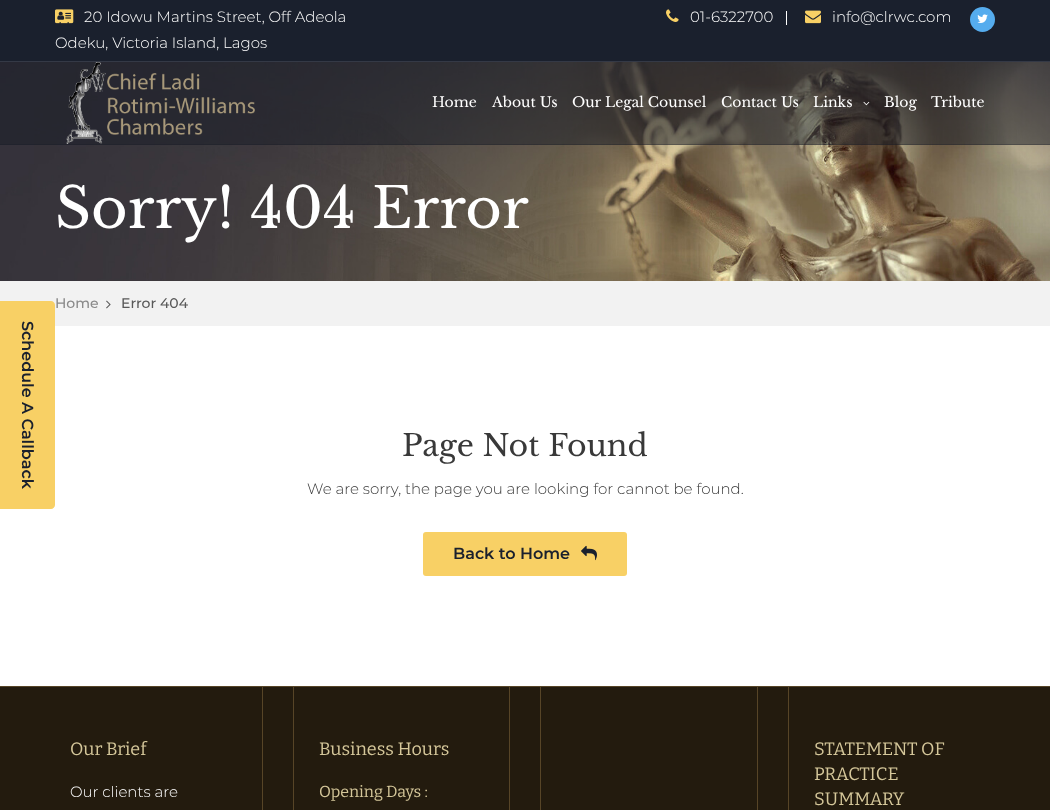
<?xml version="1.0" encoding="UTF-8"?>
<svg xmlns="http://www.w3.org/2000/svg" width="1050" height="810">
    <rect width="100%" height="100%" fill="#FFFFFF"/>
    <rect x="0" y="0" width="1050" height="61" fill="#1A202D"/>
    <image x="55" y="9" width="19" height="15" href="img_01.png"/>
    <text x="84" y="22" font-family="Montserrat" font-size="15" font-weight="300" fill="#FFFFFF">20 Idowu Martins Street, Off Adeola</text>
    <text x="55" y="48" font-family="Montserrat" font-size="15" font-weight="300" fill="#FFFFFF">Odeku, Victoria Island, Lagos</text>
    <image x="666" y="9" width="13" height="13" href="img_02.png"/>
    <text x="690" y="22" font-family="Montserrat" font-size="15" font-weight="300" fill="#FFFFFF">01-6322700</text>
    <rect x="786" y="11" width="1" height="14" fill="#FFFFFF"/>
    <image x="805" y="10" width="16" height="14" href="img_03.png"/>
    <text x="832" y="22" font-family="Montserrat" font-size="15" font-weight="300" fill="#FFFFFF">info@clrwc.com</text>
    <circle cx="982.5" cy="19.5" r="12.5" fill="#55ACEE"/>
    <image x="977" y="14" width="11" height="9" href="img_04.png"/>
    <image x="0" y="62" width="1050" height="219" href="img_07.png"/>
    <rect x="0" y="62" width="1050" height="83" fill="#181B26" fill-opacity="0.5"/>
    <rect x="0" y="61" width="1050" height="1" fill="#343946"/>
    <rect x="0" y="144" width="1050" height="1" fill="#181B26" fill-opacity="0.27"/>
    <image x="66" y="62" width="189" height="82" href="img_05.png"/>
    <text x="432" y="107" font-family="Libre Baskerville" font-size="14" fill="#FFFFFF">Home</text>
    <text x="492" y="107" font-family="Libre Baskerville" font-size="14" fill="#FFFFFF">About Us</text>
    <text x="572" y="107" font-family="Libre Baskerville" font-size="14" fill="#FFFFFF">Our Legal Counsel</text>
    <text x="721" y="107" font-family="Libre Baskerville" font-size="14" fill="#FFFFFF">Contact Us</text>
    <text x="813" y="107" font-family="Libre Baskerville" font-size="14" fill="#FFFFFF">Links</text>
    <image x="863" y="101" width="7" height="5" href="img_06.png"/>
    <text x="884" y="107" font-family="Libre Baskerville" font-size="14" fill="#FFFFFF">Blog</text>
    <text x="931" y="107" font-family="Libre Baskerville" font-size="14" fill="#FFFFFF">Tribute</text>
    <text x="55" y="228" font-family="Libre Baskerville" font-size="56" fill="#FFFFFF">Sorry! 404 Error</text>
    <rect x="0" y="281" width="1050" height="45" fill="#F2F2F2"/>
    <text x="55" y="308" font-family="Montserrat" font-size="14" font-weight="500" fill="#8A8A8A">Home</text>
    <image x="106" y="300" width="5" height="9" href="img_08.png"/>
    <text x="121" y="308" font-family="Montserrat" font-size="14" font-weight="500" fill="#595959">Error 404</text>
    <path d="M 55 305 V 505 C 55 507 53 509 51 509 H 0 V 301 H 51 C 53 301 55 303 55 305 Z" fill="#F8D065"/>
    <text x="22" y="321" transform="rotate(90 22 321)" font-family="Montserrat" font-size="16" font-weight="600" fill="#1A202D">Schedule A Callback</text>
    <text x="402" y="456" font-family="Libre Baskerville" font-size="30" fill="#393939">Page Not Found</text>
    <text x="307" y="494" font-family="Montserrat" font-size="15" font-weight="300" fill="#393939">We are sorry, the page you are looking for cannot be found.</text>
    <rect x="423" y="532" width="204" height="44" rx="3" fill="#F8D065"/>
    <text x="453" y="559" font-family="Montserrat" font-size="16" font-weight="600" fill="#1A202D">Back to Home</text>
    <image x="581" y="545" width="16" height="16" href="img_09.png"/>
    <rect x="0" y="687" width="1050" height="123" fill="#231B0E"/>
    <rect x="0" y="686" width="1050" height="1" fill="#574527"/>
    <rect x="262" y="687" width="1" height="123" fill="#574527"/>
    <text x="70" y="755" font-family="Bitter" font-size="18" font-weight="100" fill="#D5C79A">Our Brief</text>
    <text x="70" y="797" font-family="Montserrat" font-size="15" font-weight="300" fill="#FFFFFF">Our clients are</text>
    <rect x="509" y="687" width="1" height="123" fill="#574527"/>
    <rect x="293" y="687" width="1" height="123" fill="#574527"/>
    <text x="319" y="755" font-family="Bitter" font-size="18" font-weight="100" fill="#D5C79A">Business Hours</text>
    <text x="319" y="797" font-family="Bitter" font-size="16" font-weight="100" fill="#D5C79A">Opening Days :</text>
    <rect x="757" y="687" width="1" height="123" fill="#574527"/>
    <rect x="540" y="687" width="1" height="123" fill="#574527"/>
    <rect x="788" y="687" width="1" height="123" fill="#574527"/>
    <text font-family="Bitter" font-size="18" font-weight="100" fill="#D5C79A">
        <tspan x="814" y="755">STATEMENT OF</tspan>
        <tspan x="814" y="780">PRACTICE</tspan>
        <tspan x="814" y="805">SUMMARY</tspan>
    </text>
</svg>
